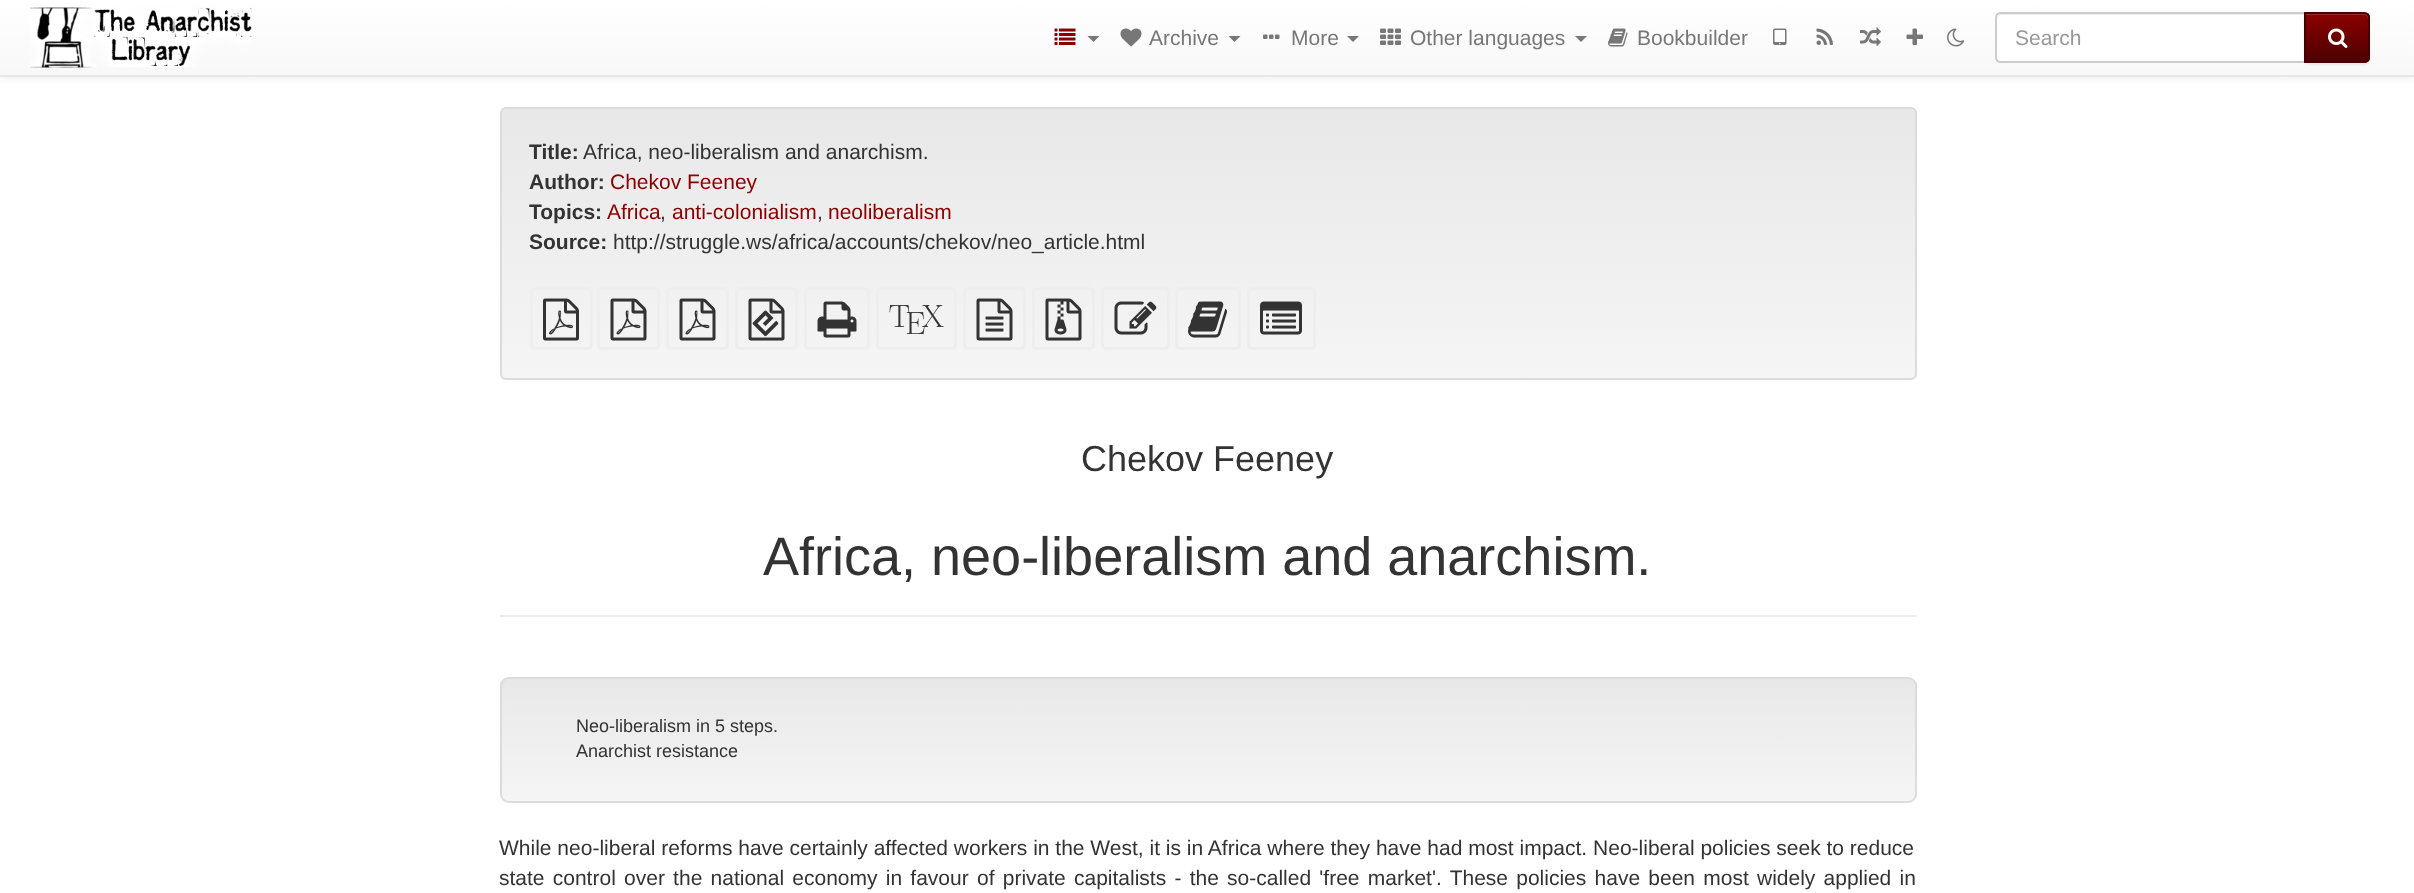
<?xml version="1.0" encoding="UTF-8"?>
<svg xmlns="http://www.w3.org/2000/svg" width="2414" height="893">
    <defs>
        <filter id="blur1" x="-50%" y="-200%" width="200%" height="500%"><feGaussianBlur stdDeviation="4"/></filter>
        <linearGradient id="g1" gradientUnits="userSpaceOnUse" x1="1208" y1="0" x2="1208" y2="75"><stop offset="0" stop-color="#FFFFFF"/><stop offset="1" stop-color="#F8F8F8"/></linearGradient>
        <filter id="blur2" x="-50%" y="-200%" width="200%" height="500%"><feGaussianBlur stdDeviation="1"/></filter>
        <clipPath id="clip1"><path d="M 2304 12 H 2364 C 2367.5 12 2370 14.5 2370 18 V 57 C 2370 60.5 2367.5 63 2364 63 H 2304 Z"/></clipPath>
        <linearGradient id="g2" gradientUnits="userSpaceOnUse" x1="2337" y1="13" x2="2337" y2="62"><stop offset="0" stop-color="#8B0000"/><stop offset="1" stop-color="#4E0000"/></linearGradient>
        <clipPath id="clip2"><rect x="500" y="107" width="1417" height="273" rx="6"/></clipPath>
        <linearGradient id="g3" gradientUnits="userSpaceOnUse" x1="1208" y1="108" x2="1208" y2="378"><stop offset="0" stop-color="#E8E8E8"/><stop offset="1" stop-color="#F5F5F5"/></linearGradient>
        <clipPath id="clip3"><rect x="500" y="677" width="1417" height="126" rx="9"/></clipPath>
        <linearGradient id="g4" gradientUnits="userSpaceOnUse" x1="1208" y1="678" x2="1208" y2="801"><stop offset="0" stop-color="#E8E8E8"/><stop offset="1" stop-color="#F5F5F5"/></linearGradient>
    </defs>
    <rect width="100%" height="100%" fill="#FFFFFF"/>
    <rect x="0" y="2" width="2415" height="76" fill="#000000" fill-opacity="0.07" filter="url(#blur1)"/>
    <rect x="0" y="0" width="2414" height="75" fill="url(#g1)"/>
    <rect x="0" y="75" width="2414" height="2" fill="#E7E7E7"/>
    <image x="30" y="7" width="222" height="61" href="img_01.png"/>
    <image x="1054" y="28" width="22" height="17" href="img_02.png"/>
    <path d="M 1087.5 36 H 1099.5 L 1093.5 42 Z" fill="#777777"/>
    <image x="1120" y="28" width="22" height="19" href="img_03.png"/>
    <text x="1149" y="45" font-family="Liberation Sans" font-size="21" fill="#777777">Archive</text>
    <path d="M 1228.5 36 H 1240.5 L 1234.5 42 Z" fill="#777777"/>
    <image x="1263" y="34" width="17" height="5" href="img_04.png"/>
    <text x="1291" y="45" font-family="Liberation Sans" font-size="21" fill="#777777">More</text>
    <path d="M 1347 36 H 1359 L 1353 42 Z" fill="#777777"/>
    <image x="1380" y="28" width="21" height="17" href="img_05.png"/>
    <text x="1410" y="45" font-family="Liberation Sans" font-size="21" fill="#777777">Other languages</text>
    <path d="M 1575 36 H 1587 L 1581 42 Z" fill="#777777"/>
    <image x="1608" y="28" width="20" height="19" href="img_06.png"/>
    <text x="1637" y="45" font-family="Liberation Sans" font-size="21" fill="#777777">Bookbuilder</text>
    <image x="1773" y="28" width="14" height="17" href="img_07.png"/>
    <image x="1816" y="28" width="17" height="17" href="img_08.png"/>
    <image x="1860" y="27" width="21" height="20" href="img_09.png"/>
    <image x="1906" y="28" width="17" height="17" href="img_10.png"/>
    <image x="1947" y="28" width="18" height="19" href="img_11.png"/>
    <path d="M 2001 12 H 2306 V 63 H 2001 C 1997.5 63 1995 60.5 1995 57 V 18 C 1995 14.5 1997.5 12 2001 12 Z" fill="#FFFFFF"/>
    <path d="M 2001 15 H 2304 V 14 H 2001 L 1999 15 L 1998 16 Z" fill="#ECECEC"/>
    <path d="M 2001 13 H 2305 V 62 H 2001 C 1998 62 1996 60 1996 57 V 18 C 1996 15 1998 13 2001 13 Z" fill="none" stroke="#CCCCCC" stroke-width="2"/>
    <text x="2015" y="45" font-family="Liberation Sans" font-size="21" fill="#999999">Search</text>
    <rect x="2304" y="14" width="66" height="51" rx="6" fill="#000000" fill-opacity="0.07" filter="url(#blur2)"/>
    <g clip-path="url(#clip1)">
        <rect x="2306" y="14" width="64" height="48" fill="url(#g2)"/>
    </g>
    <path d="M 2306 15 H 2364 C 2366 15 2368 17 2368 20 V 58 L 2367 61 C 2368 60 2369 58 2369 57 V 19 C 2369 16 2367 14 2364 14 H 2306 Z" fill="#FFFFFF" fill-opacity="0.15"/>
    <path d="M 2305 13 H 2364 C 2367 13 2369 15 2369 18 V 57 C 2369 60 2367 62 2364 62 H 2305 Z" fill="none" stroke="#440000" stroke-width="2"/>
    <image x="2328" y="28" width="20" height="20" href="img_12.png"/>
    <g clip-path="url(#clip2)">
        <rect x="500" y="108" width="1417" height="270" fill="url(#g3)"/>
    </g>
    <rect x="501" y="108" width="1415" height="271" rx="5" fill="none" stroke="#DCDCDC" stroke-width="2"/>
    <text x="529" y="159" font-family="Liberation Sans" font-size="21" font-weight="700" fill="#333333">Title:</text>
    <text x="583" y="159" font-family="Liberation Sans" font-size="21" fill="#333333">Africa, neo-liberalism and anarchism.</text>
    <text x="529" y="189" font-family="Liberation Sans" font-size="21" font-weight="700" fill="#333333">Author:</text>
    <text x="610" y="189" font-family="Liberation Sans" font-size="21" fill="#8B0000">Chekov Feeney</text>
    <text x="529" y="219" font-family="Liberation Sans" font-size="21" font-weight="700" fill="#333333">Topics:</text>
    <text x="607" y="219" font-family="Liberation Sans" font-size="21" fill="#8B0000">Africa</text>
    <text x="660" y="219" font-family="Liberation Sans" font-size="21" fill="#333333">,</text>
    <text x="672" y="219" font-family="Liberation Sans" font-size="21" fill="#8B0000">anti-colonialism</text>
    <text x="817" y="219" font-family="Liberation Sans" font-size="21" fill="#333333">,</text>
    <text x="828" y="219" font-family="Liberation Sans" font-size="21" fill="#8B0000">neoliberalism</text>
    <text x="529" y="249" font-family="Liberation Sans" font-size="21" font-weight="700" fill="#333333">Source:</text>
    <text x="613" y="249" font-family="Liberation Sans" font-size="21" fill="#333333">http://struggle.ws/africa/accounts/chekov/neo_article.html</text>
    <rect x="531.5" y="288.5" width="60" height="60" rx="3.5" fill="none" stroke="#EEEEEE" stroke-width="3"/>
    <image x="543" y="298" width="36" height="43" href="img_13.png"/>
    <rect x="598.5" y="288.5" width="60" height="60" rx="3.5" fill="none" stroke="#EEEEEE" stroke-width="3"/>
    <image x="610" y="298" width="37" height="43" href="img_14.png"/>
    <rect x="667.5" y="288.5" width="60" height="60" rx="3.5" fill="none" stroke="#EEEEEE" stroke-width="3"/>
    <image x="679" y="298" width="37" height="43" href="img_14.png"/>
    <rect x="736.5" y="288.5" width="60" height="60" rx="3.5" fill="none" stroke="#EEEEEE" stroke-width="3"/>
    <image x="748" y="298" width="37" height="43" href="img_15.png"/>
    <rect x="805.5" y="288.5" width="63" height="60" rx="3.5" fill="none" stroke="#EEEEEE" stroke-width="3"/>
    <image x="817" y="301" width="40" height="37" href="img_16.png"/>
    <rect x="877.5" y="288.5" width="78" height="60" rx="3.5" fill="none" stroke="#EEEEEE" stroke-width="3"/>
    <image x="889" y="305" width="55" height="29" href="img_17.png"/>
    <rect x="964.5" y="288.5" width="60" height="60" rx="3.5" fill="none" stroke="#EEEEEE" stroke-width="3"/>
    <image x="976" y="298" width="37" height="43" href="img_18.png"/>
    <rect x="1033.5" y="288.5" width="60" height="60" rx="3.5" fill="none" stroke="#EEEEEE" stroke-width="3"/>
    <image x="1045" y="298" width="37" height="43" href="img_19.png"/>
    <rect x="1102.5" y="288.5" width="66" height="60" rx="3.5" fill="none" stroke="#EEEEEE" stroke-width="3"/>
    <image x="1114" y="301" width="43" height="34" href="img_20.png"/>
    <rect x="1176.5" y="288.5" width="63" height="60" rx="3.5" fill="none" stroke="#EEEEEE" stroke-width="3"/>
    <image x="1188" y="301" width="39" height="37" href="img_21.png"/>
    <rect x="1248.5" y="288.5" width="66" height="60" rx="3.5" fill="none" stroke="#EEEEEE" stroke-width="3"/>
    <image x="1260" y="301" width="42" height="34" href="img_22.png"/>
    <rect x="500" y="615" width="1417" height="2" fill="#EEEEEE"/>
    <text x="1081" y="471" font-family="Liberation Sans" font-size="36" fill="#333333">Chekov Feeney</text>
    <text x="763" y="575" font-family="Liberation Sans" font-size="54" fill="#333333">Africa, neo-liberalism and anarchism.</text>
    <g clip-path="url(#clip3)">
        <rect x="500" y="678" width="1417" height="123" fill="url(#g4)"/>
    </g>
    <rect x="501" y="678" width="1415" height="124" rx="8" fill="none" stroke="#DCDCDC" stroke-width="2"/>
    <text font-family="Liberation Sans" font-size="18" fill="#333333">
        <tspan x="576" y="732">Neo-liberalism in 5 steps.</tspan>
        <tspan x="576" y="757">Anarchist resistance</tspan>
    </text>
    <text font-family="Liberation Sans" font-size="21" fill="#333333">
        <tspan x="499" y="855">While neo-liberal reforms have certainly affected workers in the West, it is in Africa where they have had most impact. Neo-liberal policies seek to reduce</tspan>
        <tspan x="499" y="885" word-spacing="2.4">state control over the national economy in favour of private capitalists - the so-called 'free market'. These policies have been most widely applied in</tspan>
    </text>
</svg>
